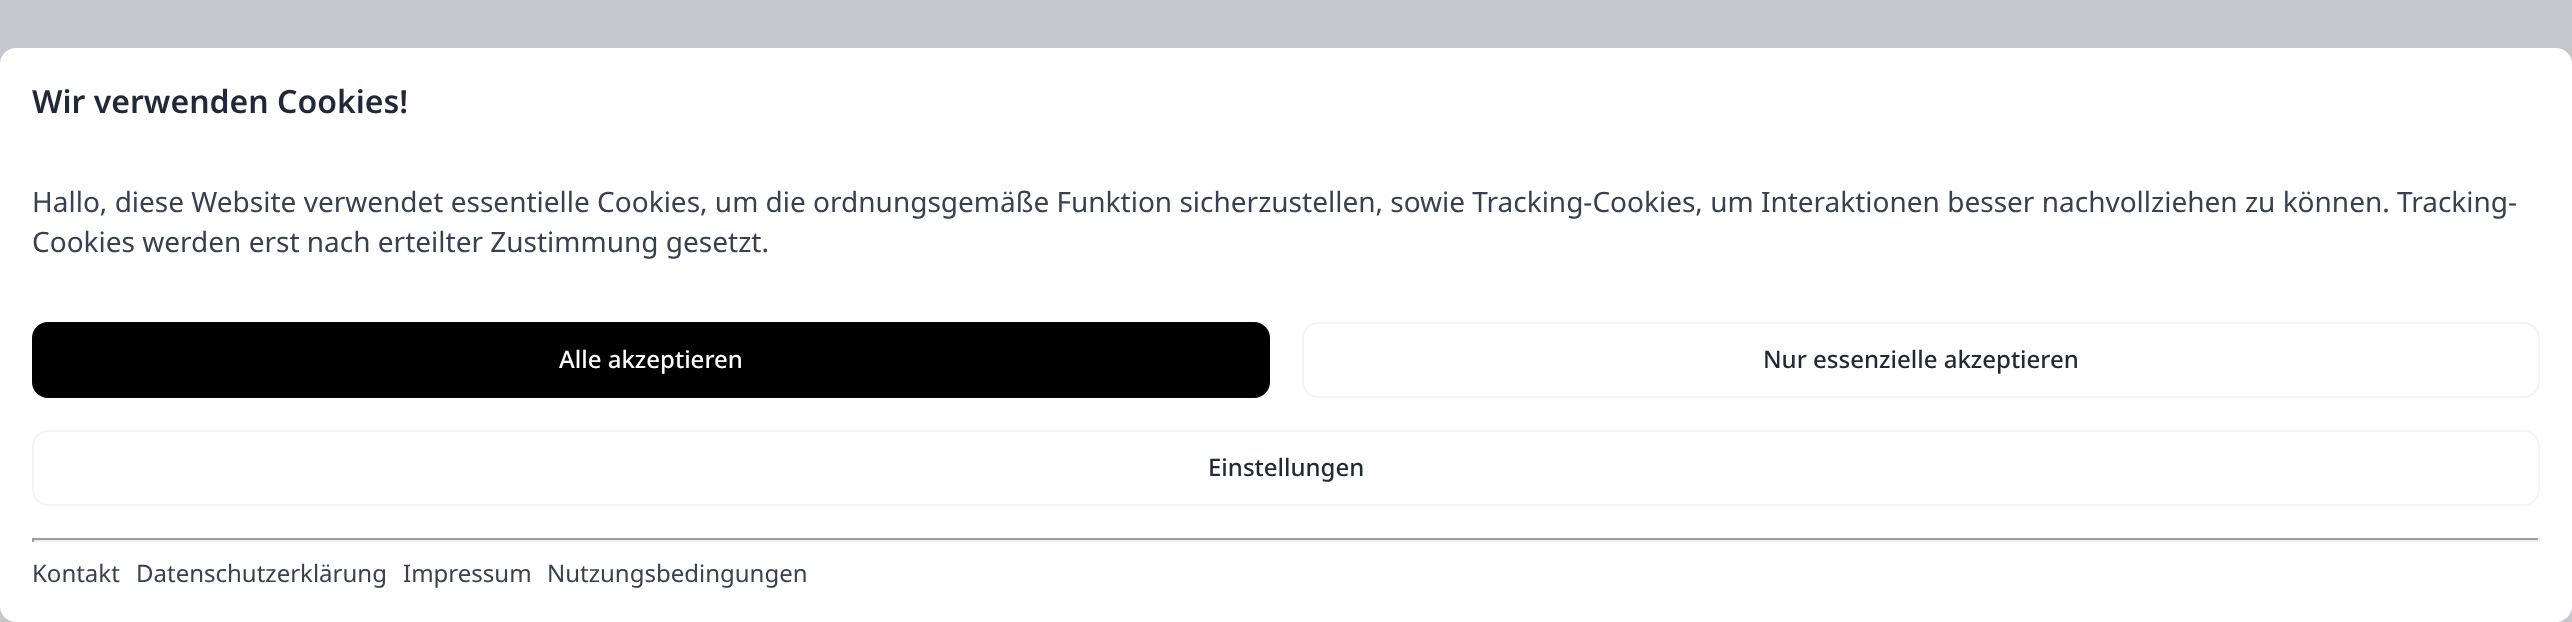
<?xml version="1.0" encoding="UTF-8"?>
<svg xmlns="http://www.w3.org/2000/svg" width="2572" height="622">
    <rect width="100%" height="100%" fill="#C4C7CC"/>
    <rect x="0" y="48" width="2572" height="574" rx="16" fill="#FFFFFF"/>
    <text x="32" y="113" font-family="Noto Sans" font-size="32" font-weight="600" fill="#1F2937">Wir verwenden Cookies!</text>
    <text font-family="Noto Sans" font-size="28" fill="#374151">
        <tspan x="32" y="212">Hallo, diese Website verwendet essentielle Cookies, um die ordnungsgemäße Funktion sicherzustellen, sowie Tracking-Cookies, um Interaktionen besser nachvollziehen zu können. Tracking-</tspan>
        <tspan x="32" y="252">Cookies werden erst nach erteilter Zustimmung gesetzt.</tspan>
    </text>
    <rect x="32" y="322" width="1238" height="76" rx="16" fill="#000000"/>
    <text x="559" y="368" font-family="Noto Sans" font-size="24" font-weight="500" fill="#FFFFFF">Alle akzeptieren</text>
    <rect x="1303" y="323" width="1236" height="74" rx="15" fill="none" stroke="#F3F4F6" stroke-width="2"/>
    <text x="1763" y="368" font-family="Noto Sans" font-size="24" font-weight="500" fill="#1F2937">Nur essenzielle akzeptieren</text>
    <rect x="33" y="431" width="2506" height="74" rx="15" fill="none" stroke="#F3F4F6" stroke-width="2"/>
    <text x="1208" y="476" font-family="Noto Sans" font-size="24" font-weight="500" fill="#1F2937">Einstellungen</text>
    <rect x="32" y="538" width="2508" height="2" fill="#9F9F9F"/>
    <rect x="2538" y="538" width="2" height="4" fill="#EEEEEE"/>
    <rect x="32" y="540" width="2508" height="2" fill="#EEEEEE"/>
    <rect x="32" y="538" width="2" height="4" fill="#9F9F9F"/>
    <text x="32" y="582" font-family="Noto Sans" font-size="24" fill="#374151">Kontakt</text>
    <text x="136" y="582" font-family="Noto Sans" font-size="24" fill="#374151">Datenschutzerklärung</text>
    <text x="403" y="582" font-family="Noto Sans" font-size="24" fill="#374151">Impressum</text>
    <text x="547" y="582" font-family="Noto Sans" font-size="24" fill="#374151">Nutzungsbedingungen</text>
</svg>
